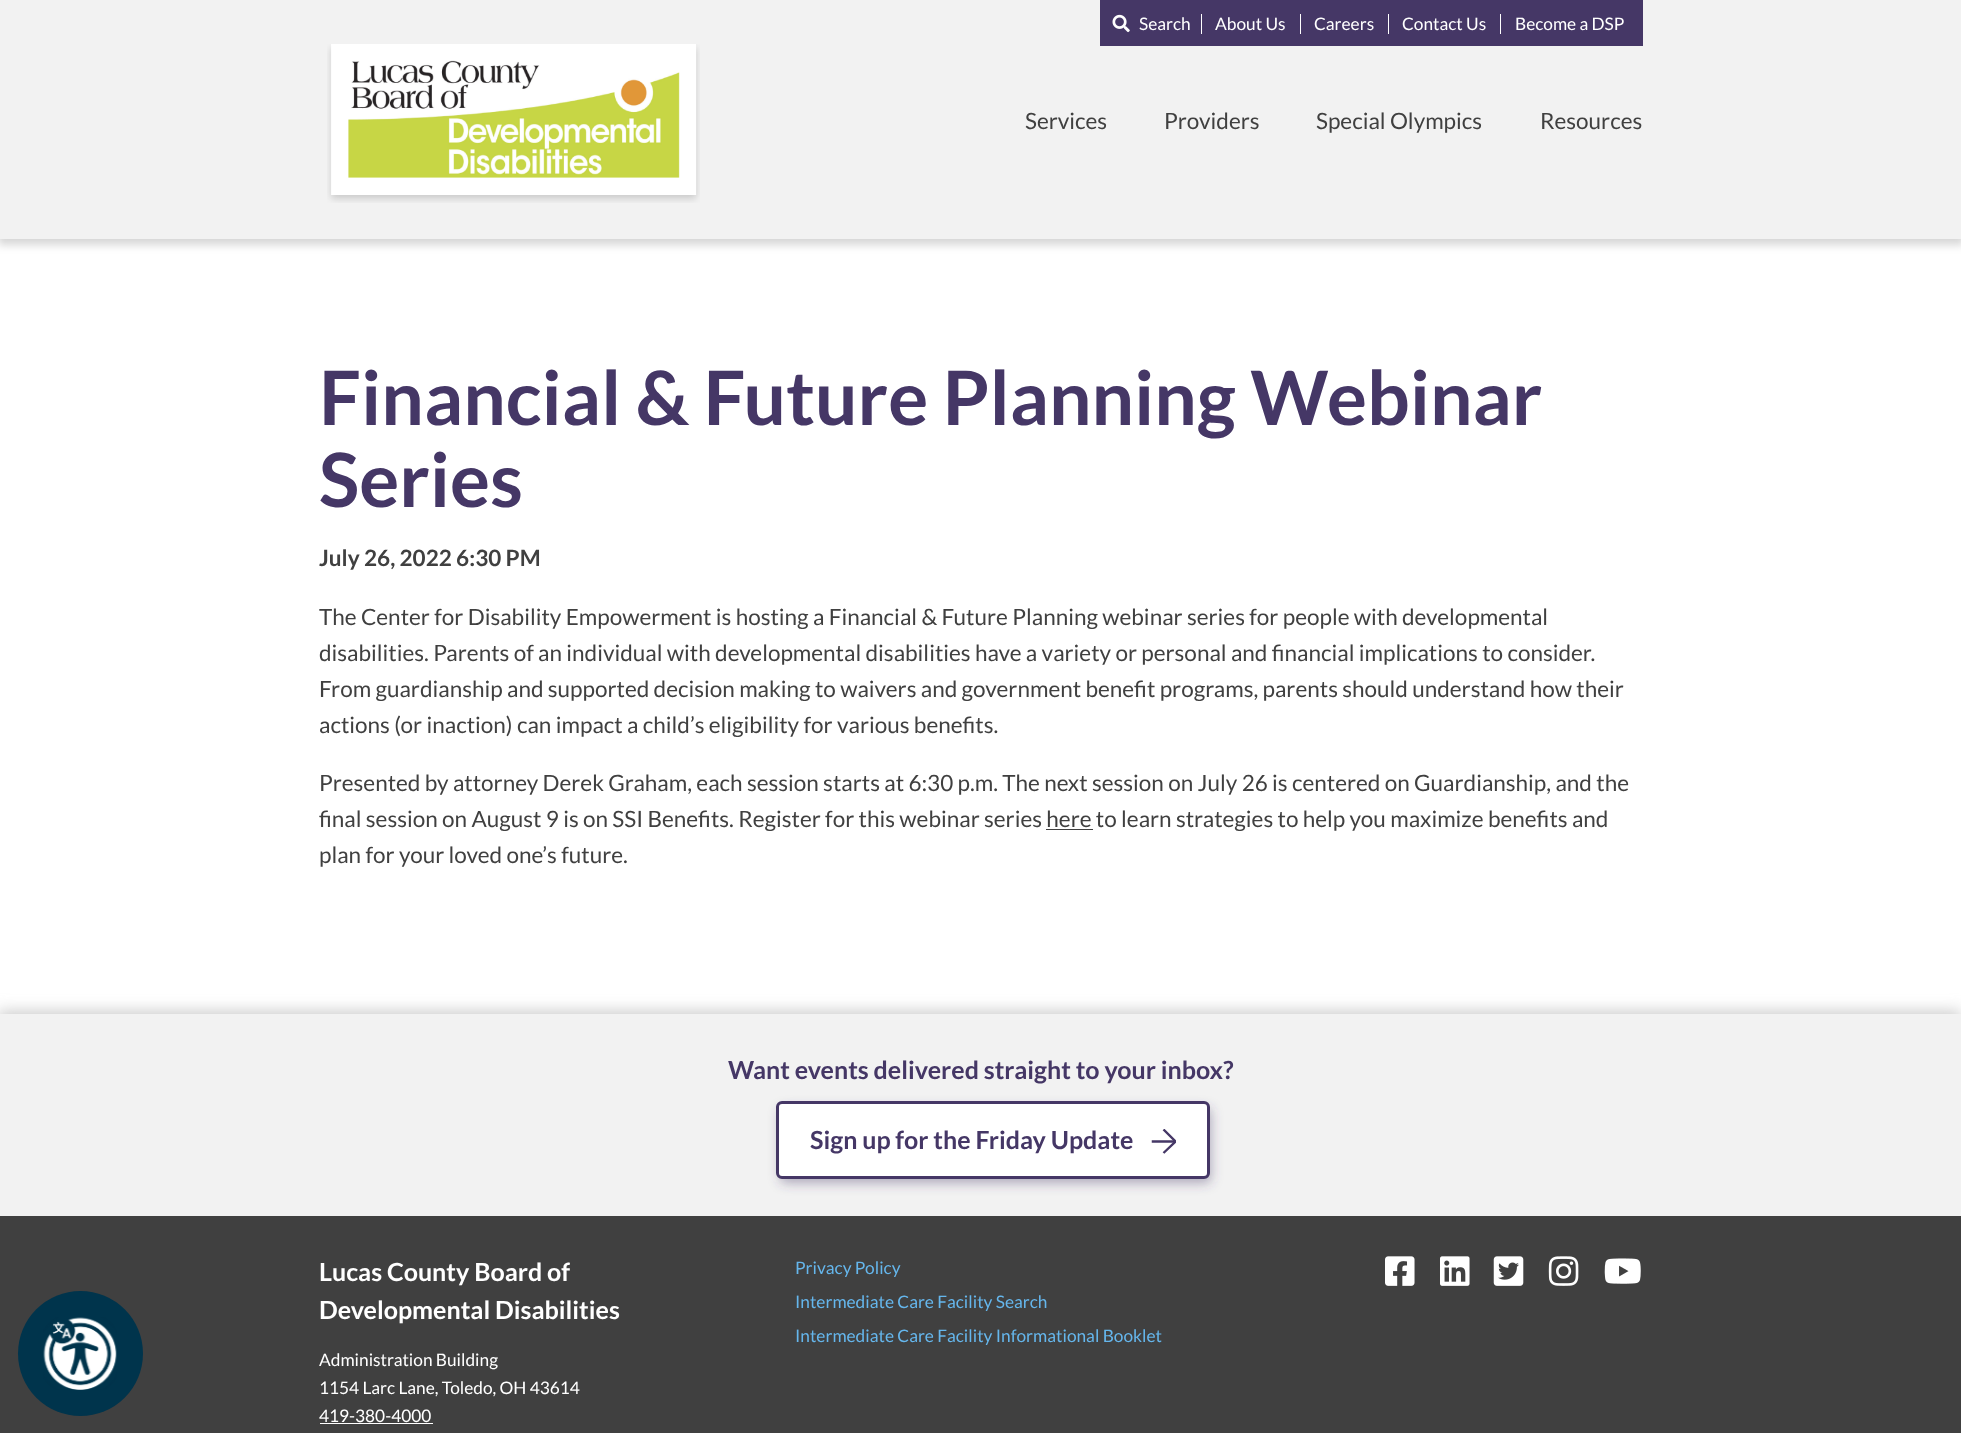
<?xml version="1.0" encoding="UTF-8"?>
<svg xmlns="http://www.w3.org/2000/svg" width="1961" height="1433">
    <defs>
        <filter id="blur1" x="-50%" y="-200%" width="200%" height="500%"><feGaussianBlur stdDeviation="7.5"/></filter>
        <filter id="blur2" x="-50%" y="-200%" width="200%" height="500%"><feGaussianBlur stdDeviation="4"/></filter>
        <filter id="blur3" x="-50%" y="-200%" width="200%" height="500%"><feGaussianBlur stdDeviation="6"/></filter>
        <clipPath id="clip1"><rect x="1151" y="1129" width="25" height="25"/></clipPath>
        <clipPath id="clip2"><path d="M 1176 1129 V 1153.5 H 1151.5 V 1129 Z"/></clipPath>
    </defs>
    <rect width="100%" height="100%" fill="#FFFFFF"/>
    <rect x="-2" y="1011" width="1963" height="205" fill="#CCCCCC" filter="url(#blur1)"/>
    <rect x="0" y="1216" width="1961" height="217" fill="#404040"/>
    <circle cx="80.5" cy="1353.5" r="62.5" fill="#00344C"/>
    <image x="43" y="1317" width="74" height="73" href="img_01.png"/>
    <rect x="-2" y="1" width="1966" height="244" fill="#000000" fill-opacity="0.16" filter="url(#blur2)"/>
    <rect x="0" y="0" width="1961" height="239" fill="#F2F2F2"/>
    <image x="327" y="44" width="373" height="159" href="img_02.png"/>
    <rect x="1100" y="0" width="543" height="46" fill="#453766"/>
    <image x="1112" y="14" width="18" height="19" href="img_03.png"/>
    <text x="1139" y="30" font-family="Lato" font-size="17.3" fill="#FFFFFF">Search</text>
    <rect x="1201" y="14" width="1" height="20" fill="#FFFFFF"/>
    <text x="1215" y="30" font-family="Lato" font-size="17.3" fill="#FFFFFF">About Us</text>
    <rect x="1300" y="14" width="1" height="20" fill="#FFFFFF"/>
    <text x="1314" y="30" font-family="Lato" font-size="17.3" fill="#FFFFFF">Careers</text>
    <rect x="1388" y="14" width="1" height="20" fill="#FFFFFF"/>
    <text x="1402" y="30" font-family="Lato" font-size="17.3" fill="#FFFFFF">Contact Us</text>
    <rect x="1500" y="14" width="1" height="20" fill="#FFFFFF"/>
    <text x="1515" y="30" font-family="Lato" font-size="17.3" fill="#FFFFFF">Become a DSP</text>
    <text x="1025" y="129" font-family="Lato" font-size="22.5" fill="#404040">Services</text>
    <text x="1164" y="129" font-family="Lato" font-size="22.5" fill="#404040">Providers</text>
    <text x="1316" y="129" font-family="Lato" font-size="22.5" fill="#404040">Special Olympics</text>
    <text x="1540" y="129" font-family="Lato" font-size="22.5" fill="#404040">Resources</text>
    <text font-family="Lato" font-size="74.9" font-weight="700" fill="#453766">
        <tspan x="319" y="425">Financial &amp; Future Planning Webinar</tspan>
        <tspan x="319" y="507">Series</tspan>
    </text>
    <text x="319" y="566" font-family="Lato" font-size="22.5" font-weight="700" fill="#404040">July 26, 2022 6:30 PM</text>
    <text font-family="Lato" font-size="22.5" fill="#404040">
        <tspan x="319" y="625">The Center for Disability Empowerment is hosting a Financial &amp; Future Planning webinar series for people with developmental</tspan>
        <tspan x="319" y="661">disabilities. Parents of an individual with developmental disabilities have a variety or personal and financial implications to consider.</tspan>
        <tspan x="319" y="697">From guardianship and supported decision making to waivers and government benefit programs, parents should understand how their</tspan>
        <tspan x="319" y="733">actions (or inaction) can impact a child’s eligibility for various benefits.</tspan>
    </text>
    <text font-family="Lato" font-size="22.5" fill="#404040">
        <tspan x="319" y="791">Presented by attorney Derek Graham, each session starts at 6:30 p.m. The next session on July 26 is centered on Guardianship, and the</tspan>
        <tspan x="319" y="827">final session on August 9 is on SSI Benefits. Register for this webinar series here to learn strategies to help you maximize benefits and</tspan>
    </text>
    <rect x="1046" y="829" width="47" height="1" fill="#404040"/>
    <text x="319" y="863" font-family="Lato" font-size="22.5" fill="#404040">plan for your loved one’s future.</text>
    <rect x="0" y="1014" width="1961" height="202" fill="#F2F2F2"/>
    <text x="728" y="1079" font-family="Lato" font-size="25" font-weight="700" fill="#453766">Want events delivered straight to your inbox?</text>
    <rect x="780" y="1108" width="431" height="75" rx="5" fill="#453766" fill-opacity="0.4" filter="url(#blur3)"/>
    <rect x="777.5" y="1102.5" width="431" height="75" rx="4.5" fill="#FFFFFF" stroke="#453766" stroke-width="3"/>
    <text x="810" y="1149" font-family="Lato" font-size="25" font-weight="700" fill="#453766">Sign up for the Friday Update</text>
    <g clip-path="url(#clip1)">
        <path d="M 1163.5 1153 L 1175.5 1141.5 L 1163.5 1129.5" fill="none" stroke="#453766" stroke-width="2.4"/>
    </g>
    <g clip-path="url(#clip2)">
        <path d="M 1175 1141.5 H 1151.5" fill="none" stroke="#453766" stroke-width="2.4"/>
    </g>
    <text font-family="Lato" font-size="25" font-weight="700" fill="#FFFFFF">
        <tspan x="319" y="1281">Lucas County Board of</tspan>
        <tspan x="319" y="1319">Developmental Disabilities</tspan>
    </text>
    <text font-family="Lato" font-size="17.3" fill="#FFFFFF">
        <tspan x="319" y="1366">Administration Building</tspan>
        <tspan x="319" y="1394">1154 Larc Lane, Toledo, OH 43614</tspan>
        <tspan x="319" y="1422">419-380-4000</tspan>
    </text>
    <rect x="320" y="1423" width="113" height="1" fill="#FFFFFF"/>
    <text font-family="Lato" font-size="17.3" fill="#65B6EC">
        <tspan x="795" y="1274">Privacy Policy</tspan>
        <tspan x="795" y="1308">Intermediate Care Facility Search</tspan>
        <tspan x="795" y="1342">Intermediate Care Facility Informational Booklet</tspan>
    </text>
    <image x="1385" y="1256" width="30" height="30" href="img_04.png"/>
    <image x="1440" y="1256" width="30" height="30" href="img_05.png"/>
    <image x="1493" y="1256" width="31" height="30" href="img_06.png"/>
    <image x="1548" y="1256" width="31" height="30" href="img_07.png"/>
    <image x="1604" y="1258" width="37" height="26" href="img_08.png"/>
</svg>
